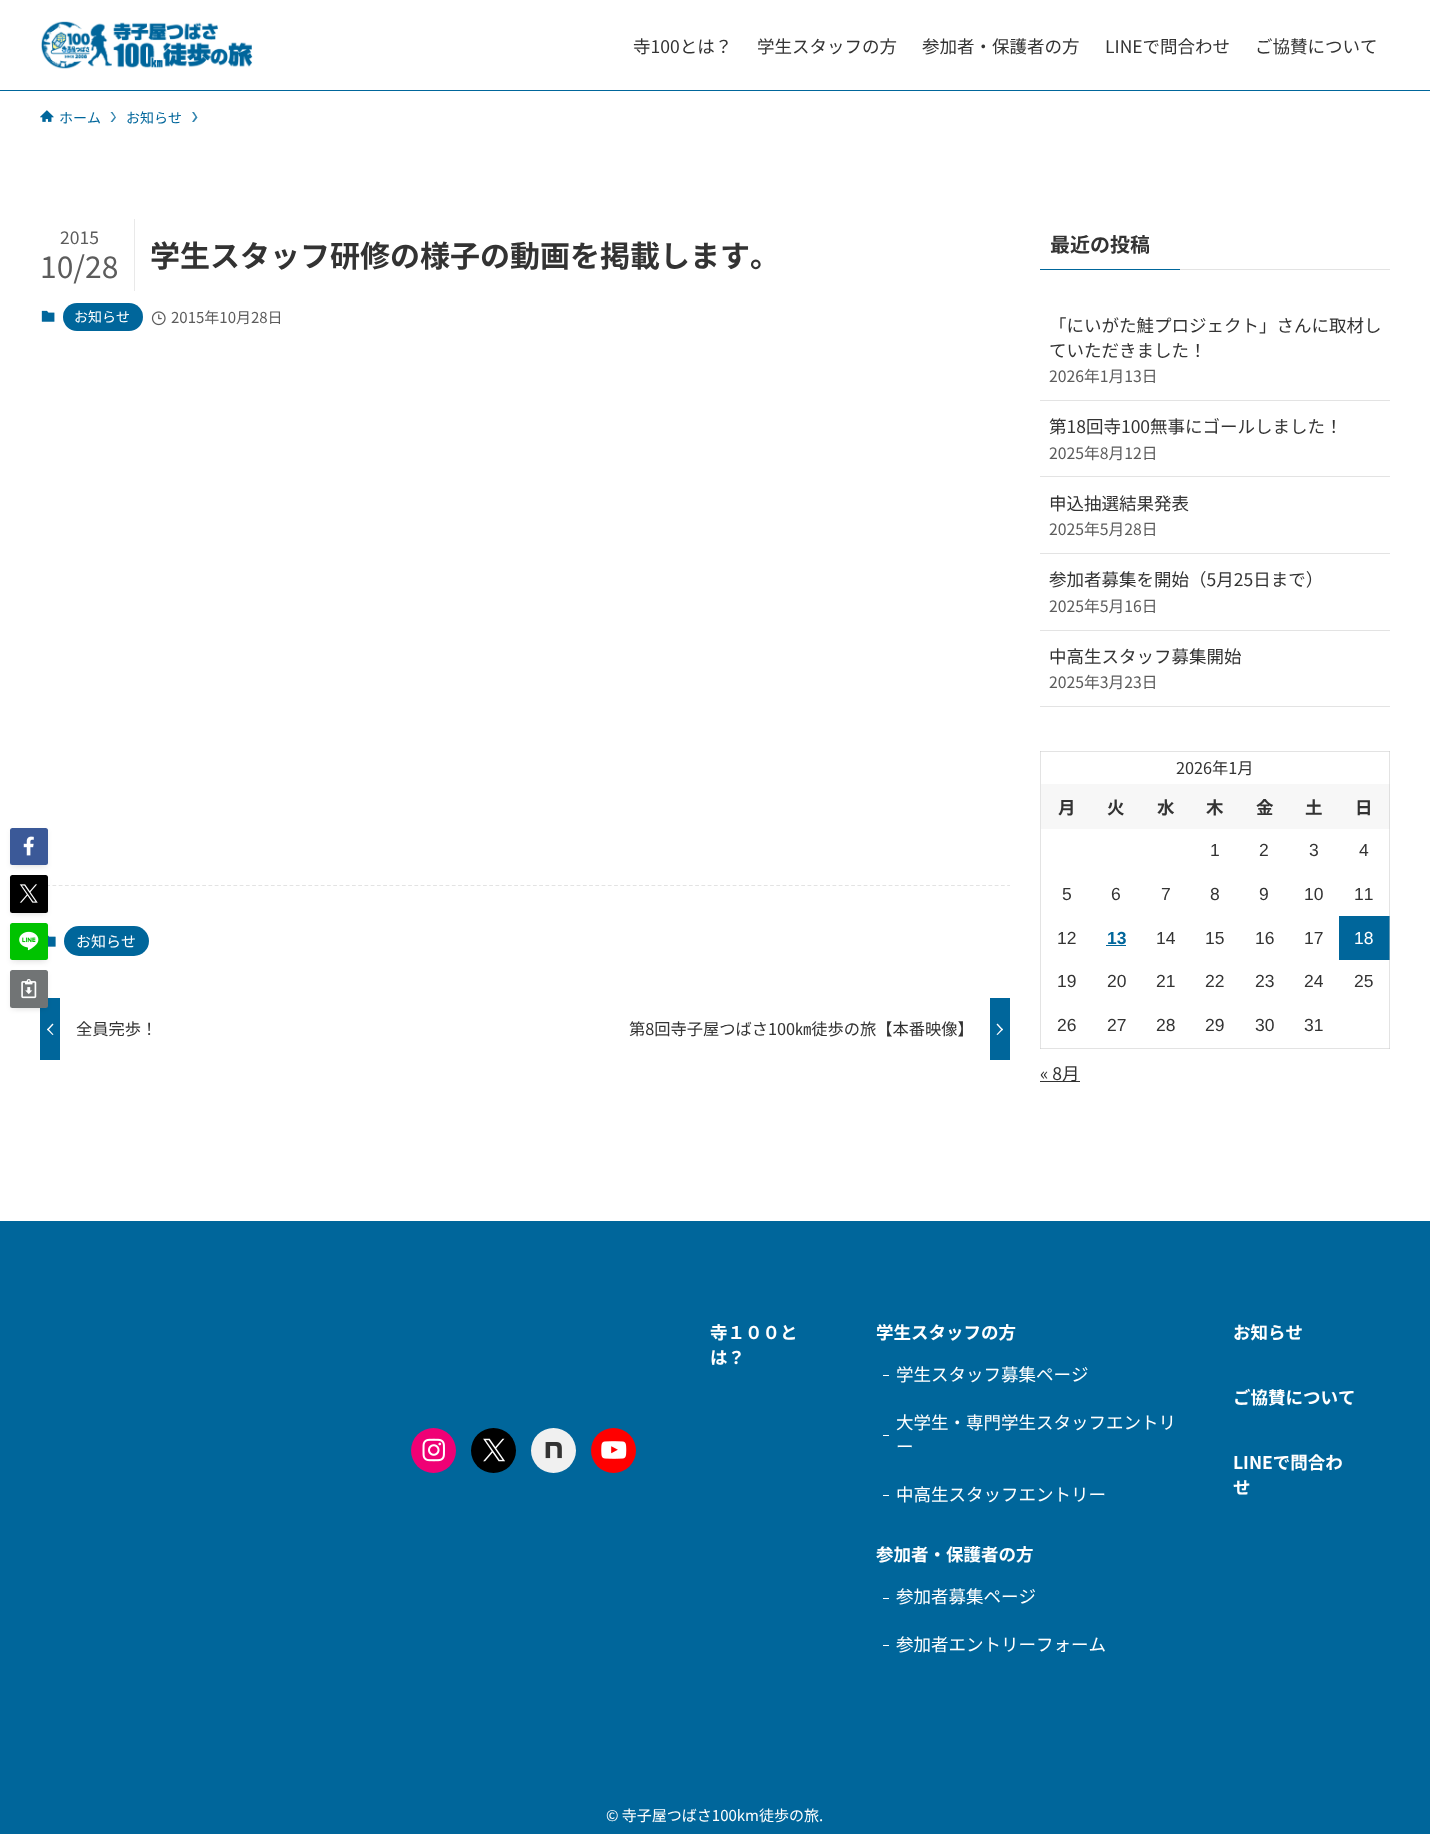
<?xml version="1.0" encoding="UTF-8"?>
<svg xmlns="http://www.w3.org/2000/svg" width="1430" height="1834">
    <style>*{font-kerning:none!important;font-variant-ligatures:none!important}</style>
    <defs>
        <filter id="blur1" x="-50%" y="-200%" width="200%" height="500%"><feGaussianBlur stdDeviation="2.5"/></filter>
    </defs>
    <rect width="100%" height="100%" fill="#FFFFFF"/>
    <rect x="1040" y="751" width="1" height="298" fill="#E3E3E3"/>
    <rect x="1040" y="1048" width="350" height="1" fill="#E3E3E3"/>
    <rect x="1040" y="1048" width="1" height="1" fill="#D5D5D5"/>
    <rect x="1389" y="751" width="1" height="298" fill="#E3E3E3"/>
    <rect x="1389" y="1048" width="1" height="1" fill="#D5D5D5"/>
    <rect x="0" y="90" width="1430" height="1" fill="#00669B"/>
    <image x="41" y="21" width="212" height="48" href="img_01.png"/>
    <text x="633" y="53" font-family="Noto Sans JP" font-size="17.5" fill="#333333">寺100とは？</text>
    <text x="757" y="53" font-family="Noto Sans JP" font-size="17.5" fill="#333333">学生スタッフの方</text>
    <text x="922" y="53" font-family="Noto Sans JP" font-size="17.5" fill="#333333">参加者・保護者の方</text>
    <text x="1105" y="53" font-family="Noto Sans JP" font-size="17.5" fill="#333333">LINEで問合わせ</text>
    <text x="1255" y="53" font-family="Noto Sans JP" font-size="17.5" fill="#333333">ご協賛について</text>
    <image x="40" y="110" width="14" height="12" href="img_02.png"/>
    <text x="59" y="123" font-family="Noto Sans JP" font-size="14" fill="#00669B">ホーム</text>
    <path d="M 112.5 112 H 110.5 L 114.5 117 L 110.5 122 H 112.5 L 116 117.5 Z" fill="#3385AF"/>
    <text x="126" y="123" font-family="Noto Sans JP" font-size="14" fill="#00669B">お知らせ</text>
    <path d="M 194 112 H 192 L 195.5 117 L 192 122 H 194 L 197.5 117.5 Z" fill="#3385AF"/>
    <rect x="134" y="219" width="1" height="72" fill="#E9E9E9"/>
    <text x="60" y="244" font-family="Noto Sans JP" font-size="17.5" fill="#5C5C5C">2015</text>
    <text x="40" y="278" font-family="Noto Sans JP" font-size="30" fill="#5C5C5C">10/28</text>
    <text x="150" y="267" font-family="Noto Sans JP" font-size="30" font-weight="700" fill="#333333">学生スタッフ研修の様子の動画を掲載します。</text>
    <image x="41" y="310" width="14" height="12" href="img_03.png"/>
    <rect x="63" y="303" width="80" height="28" rx="14" fill="#00669B"/>
    <text x="74" y="322" font-family="Noto Sans JP" font-size="14" fill="#FFFFFF">お知らせ</text>
    <image x="151" y="311" width="15" height="15" href="img_04.png"/>
    <text x="171" y="323" font-family="Noto Sans JP" font-size="15" fill="#5C5C5C">2015年10月28日</text>
    <rect x="15" y="838" width="28" height="27" fill="#000000" fill-opacity="0.1" filter="url(#blur1)"/>
    <rect x="10" y="830" width="38" height="38" rx="2.5" fill="#000000" fill-opacity="0.05" filter="url(#blur1)"/>
    <rect x="10" y="828" width="38" height="37" rx="2.5" fill="#3B5998"/>
    <image x="23" y="836" width="11" height="20" href="img_05.png"/>
    <path d="M 40 885.5 H 1010" fill="none" stroke="#E3E3E3" stroke-width="1.2" stroke-dasharray="3.75 2.49"/>
    <rect x="15" y="885" width="28" height="28" fill="#000000" fill-opacity="0.1" filter="url(#blur1)"/>
    <rect x="10" y="878" width="38" height="37" rx="2.5" fill="#000000" fill-opacity="0.05" filter="url(#blur1)"/>
    <rect x="10" y="875" width="38" height="38" rx="2.5" fill="#000000"/>
    <image x="19" y="884" width="19" height="19" href="img_06.png"/>
    <image x="48" y="935" width="8" height="12" href="img_09.png"/>
    <rect x="15" y="933" width="28" height="27" fill="#000000" fill-opacity="0.1" filter="url(#blur1)"/>
    <rect x="10" y="925" width="38" height="38" rx="2.5" fill="#000000" fill-opacity="0.05" filter="url(#blur1)"/>
    <rect x="10" y="923" width="38" height="37" rx="2.5" fill="#00C300"/>
    <image x="19" y="931" width="20" height="20" href="img_07.png"/>
    <rect x="40" y="998" width="20" height="62" fill="#00669B"/>
    <rect x="15" y="980" width="28" height="28" fill="#000000" fill-opacity="0.1" filter="url(#blur1)"/>
    <rect x="10" y="973" width="38" height="37" rx="2.5" fill="#000000" fill-opacity="0.05" filter="url(#blur1)"/>
    <rect x="10" y="970" width="38" height="38" rx="2.5" fill="#717475"/>
    <image x="21" y="979" width="16" height="20" href="img_08.png"/>
    <rect x="64" y="926" width="85" height="30" rx="15" fill="#00669B"/>
    <text x="76" y="947" font-family="Noto Sans JP" font-size="15" fill="#FFFFFF">お知らせ</text>
    <path d="M 48 1028.5 L 53.5 1034.5 L 52.5 1035 L 47 1029.5 Z" fill="#FFFFFF"/>
    <path d="M 52.5 1023.5 L 53.5 1024.5 L 48 1030.5 L 47 1029.5 Z" fill="#FFFFFF"/>
    <text x="76" y="1035" font-family="Noto Sans JP" font-size="16.25" fill="#333333">全員完歩！</text>
    <rect x="990" y="998" width="20" height="62" fill="#00669B"/>
    <text x="629" y="1035" font-family="Noto Sans JP" font-size="16.25" fill="#333333">第8回寺子屋つばさ100㎞徒歩の旅【本番映像】</text>
    <path d="M 996.5 1024.5 L 997.5 1023.5 L 1003 1029.5 L 1002 1030.5 Z" fill="#FFFFFF"/>
    <path d="M 996.5 1034.5 L 1002 1028.5 L 1003 1029.5 L 997.5 1035 Z" fill="#FFFFFF"/>
    <text x="1050" y="252" font-family="Noto Sans JP" font-size="20" font-weight="700" fill="#333333">最近の投稿</text>
    <rect x="1040" y="269" width="140" height="1" fill="#00669B"/>
    <rect x="1180" y="269" width="210" height="1" fill="#E3E3E3"/>
    <rect x="1040" y="400" width="350" height="1" fill="#E3E3E3"/>
    <text font-family="Noto Sans JP" font-size="17.5" fill="#333333">
        <tspan x="1049" y="332">「にいがた鮭プロジェクト」さんに取材し</tspan>
        <tspan x="1049" y="357">ていただきました！</tspan>
    </text>
    <text x="1049" y="382" font-family="Noto Sans JP" font-size="15.75" fill="#5C5C5C">2026年1月13日</text>
    <rect x="1040" y="476" width="350" height="1" fill="#E3E3E3"/>
    <text x="1049" y="433" font-family="Noto Sans JP" font-size="17.5" fill="#333333">第18回寺100無事にゴールしました！</text>
    <text x="1049" y="459" font-family="Noto Sans JP" font-size="15.75" fill="#5C5C5C">2025年8月12日</text>
    <rect x="1040" y="553" width="350" height="1" fill="#E3E3E3"/>
    <text x="1049" y="510" font-family="Noto Sans JP" font-size="17.5" fill="#333333">申込抽選結果発表</text>
    <text x="1049" y="535" font-family="Noto Sans JP" font-size="15.75" fill="#5C5C5C">2025年5月28日</text>
    <rect x="1040" y="630" width="350" height="1" fill="#E3E3E3"/>
    <text x="1049" y="586" font-family="Noto Sans JP" font-size="17.5" fill="#333333">参加者募集を開始（5月25日まで）</text>
    <text x="1049" y="612" font-family="Noto Sans JP" font-size="15.75" fill="#5C5C5C">2025年5月16日</text>
    <rect x="1040" y="706" width="350" height="1" fill="#E3E3E3"/>
    <text x="1049" y="663" font-family="Noto Sans JP" font-size="17.5" fill="#333333">中高生スタッフ募集開始</text>
    <text x="1049" y="688" font-family="Noto Sans JP" font-size="15.75" fill="#5C5C5C">2025年3月23日</text>
    <rect x="1040" y="751" width="350" height="1" fill="#E3E3E3"/>
    <rect x="1040" y="751" width="1" height="1" fill="#D5D5D5"/>
    <rect x="1389" y="751" width="1" height="1" fill="#D5D5D5"/>
    <text x="1176" y="774" font-family="Noto Sans JP" font-size="16.25" fill="#333333">2026年1月</text>
    <rect x="1041" y="784" width="348" height="45" fill="#F7F7F7"/>
    <text x="1058" y="814" font-family="Noto Sans JP" font-size="17.5" font-weight="700" fill="#333333">月</text>
    <text x="1107" y="814" font-family="Noto Sans JP" font-size="17.5" font-weight="700" fill="#333333">火</text>
    <text x="1157" y="814" font-family="Noto Sans JP" font-size="17.5" font-weight="700" fill="#333333">水</text>
    <text x="1206" y="814" font-family="Noto Sans JP" font-size="17.5" font-weight="700" fill="#333333">木</text>
    <text x="1256" y="814" font-family="Noto Sans JP" font-size="17.5" font-weight="700" fill="#333333">金</text>
    <text x="1305" y="814" font-family="Noto Sans JP" font-size="17.5" font-weight="700" fill="#333333">土</text>
    <rect x="1389" y="784" width="1" height="45" fill="#DFDFDF"/>
    <text x="1355" y="814" font-family="Noto Sans JP" font-size="17.5" font-weight="700" fill="#333333">日</text>
    <text x="1210" y="856" font-family="Liberation Sans" font-size="17.5" fill="#333333">1</text>
    <text x="1259" y="856" font-family="Liberation Sans" font-size="17.5" fill="#333333">2</text>
    <text x="1309" y="856" font-family="Liberation Sans" font-size="17.5" fill="#333333">3</text>
    <text x="1359" y="856" font-family="Liberation Sans" font-size="17.5" fill="#333333">4</text>
    <text x="1062" y="900" font-family="Liberation Sans" font-size="17.5" fill="#333333">5</text>
    <text x="1111" y="900" font-family="Liberation Sans" font-size="17.5" fill="#333333">6</text>
    <text x="1161" y="900" font-family="Liberation Sans" font-size="17.5" fill="#333333">7</text>
    <text x="1210" y="900" font-family="Liberation Sans" font-size="17.5" fill="#333333">8</text>
    <text x="1259" y="900" font-family="Liberation Sans" font-size="17.5" fill="#333333">9</text>
    <text x="1304" y="900" font-family="Liberation Sans" font-size="17.5" fill="#333333">10</text>
    <text x="1354" y="900" font-family="Liberation Sans" font-size="17.5" fill="#333333">11</text>
    <text x="1057" y="944" font-family="Liberation Sans" font-size="17.5" fill="#333333">12</text>
    <text x="1107" y="944" font-family="Liberation Sans" font-size="17.5" font-weight="700" fill="#00669B">13</text>
    <rect x="1106" y="945" width="20" height="1" fill="#00669B"/>
    <text x="1156" y="944" font-family="Liberation Sans" font-size="17.5" fill="#333333">14</text>
    <text x="1205" y="944" font-family="Liberation Sans" font-size="17.5" fill="#333333">15</text>
    <text x="1255" y="944" font-family="Liberation Sans" font-size="17.5" fill="#333333">16</text>
    <text x="1304" y="944" font-family="Liberation Sans" font-size="17.5" fill="#333333">17</text>
    <rect x="1339" y="916" width="50" height="44" fill="#00669B"/>
    <rect x="1389" y="916" width="1" height="44" fill="#6497B1"/>
    <text x="1354" y="944" font-family="Liberation Sans" font-size="17.5" fill="#FFFFFF">18</text>
    <text x="1057" y="987" font-family="Liberation Sans" font-size="17.5" fill="#333333">19</text>
    <text x="1107" y="987" font-family="Liberation Sans" font-size="17.5" fill="#333333">20</text>
    <text x="1156" y="987" font-family="Liberation Sans" font-size="17.5" fill="#333333">21</text>
    <text x="1205" y="987" font-family="Liberation Sans" font-size="17.5" fill="#333333">22</text>
    <text x="1255" y="987" font-family="Liberation Sans" font-size="17.5" fill="#333333">23</text>
    <text x="1304" y="987" font-family="Liberation Sans" font-size="17.5" fill="#333333">24</text>
    <text x="1354" y="987" font-family="Liberation Sans" font-size="17.5" fill="#333333">25</text>
    <text x="1057" y="1031" font-family="Liberation Sans" font-size="17.5" fill="#333333">26</text>
    <text x="1107" y="1031" font-family="Liberation Sans" font-size="17.5" fill="#333333">27</text>
    <text x="1156" y="1031" font-family="Liberation Sans" font-size="17.5" fill="#333333">28</text>
    <text x="1205" y="1031" font-family="Liberation Sans" font-size="17.5" fill="#333333">29</text>
    <text x="1255" y="1031" font-family="Liberation Sans" font-size="17.5" fill="#333333">30</text>
    <text x="1304" y="1031" font-family="Liberation Sans" font-size="17.5" fill="#333333">31</text>
    <rect x="1040" y="1081" width="40" height="1" fill="#333333"/>
    <text x="1040" y="1080" font-family="Noto Sans JP" font-size="17.5" fill="#333333">« 8月</text>
    <rect x="0" y="1221" width="1430" height="613" fill="#00669B"/>
    <circle cx="433.5" cy="1450.5" r="22.5" fill="#F00075"/>
    <image x="422" y="1438" width="23" height="24" href="img_10.png"/>
    <circle cx="493.5" cy="1450.5" r="22.5" fill="#000000"/>
    <image x="483" y="1438" width="22" height="24" href="img_11.png"/>
    <circle cx="553.5" cy="1450.5" r="22.5" fill="#F0F0F0"/>
    <image x="545" y="1442" width="17" height="17" href="img_12.png"/>
    <circle cx="613.5" cy="1450.5" r="22.5" fill="#FF0000"/>
    <image x="601" y="1441" width="26" height="18" href="img_13.png"/>
    <text font-family="Noto Sans JP" font-size="17.5" font-weight="700" fill="#FFFFFF">
        <tspan x="710" y="1339">寺１００と</tspan>
        <tspan x="710" y="1364">は？</tspan>
    </text>
    <text x="876" y="1339" font-family="Noto Sans JP" font-size="17.5" font-weight="700" fill="#FFFFFF">学生スタッフの方</text>
    <rect x="883" y="1375" width="6" height="1" fill="#FFFFFF"/>
    <text x="896" y="1381" font-family="Noto Sans JP" font-size="17.5" fill="#FFFFFF">学生スタッフ募集ページ</text>
    <rect x="883" y="1435" width="6" height="1" fill="#FFFFFF"/>
    <text font-family="Noto Sans JP" font-size="17.5" fill="#FFFFFF">
        <tspan x="896" y="1429">大学生・専門学生スタッフエントリ</tspan>
        <tspan x="896" y="1453">ー</tspan>
    </text>
    <rect x="883" y="1495" width="6" height="1" fill="#FFFFFF"/>
    <text x="896" y="1501" font-family="Noto Sans JP" font-size="17.5" fill="#FFFFFF">中高生スタッフエントリー</text>
    <text x="876" y="1561" font-family="Noto Sans JP" font-size="17.5" font-weight="700" fill="#FFFFFF">参加者・保護者の方</text>
    <rect x="883" y="1598" width="6" height="1" fill="#FFFFFF"/>
    <text x="896" y="1603" font-family="Noto Sans JP" font-size="17.5" fill="#FFFFFF">参加者募集ページ</text>
    <rect x="883" y="1645" width="6" height="1" fill="#FFFFFF"/>
    <text x="896" y="1651" font-family="Noto Sans JP" font-size="17.5" fill="#FFFFFF">参加者エントリーフォーム</text>
    <text x="1233" y="1339" font-family="Noto Sans JP" font-size="17.5" font-weight="700" fill="#FFFFFF">お知らせ</text>
    <text x="1233" y="1404" font-family="Noto Sans JP" font-size="17.5" font-weight="700" fill="#FFFFFF">ご協賛について</text>
    <text font-family="Noto Sans JP" font-size="17.5" font-weight="700" fill="#FFFFFF">
        <tspan x="1233" y="1469">LINEで問合わ</tspan>
        <tspan x="1233" y="1494">せ</tspan>
    </text>
    <text x="606" y="1821" font-family="Noto Sans JP" font-size="15" fill="#FFFFFF">© 寺子屋つばさ100km徒歩の旅.</text>
</svg>
